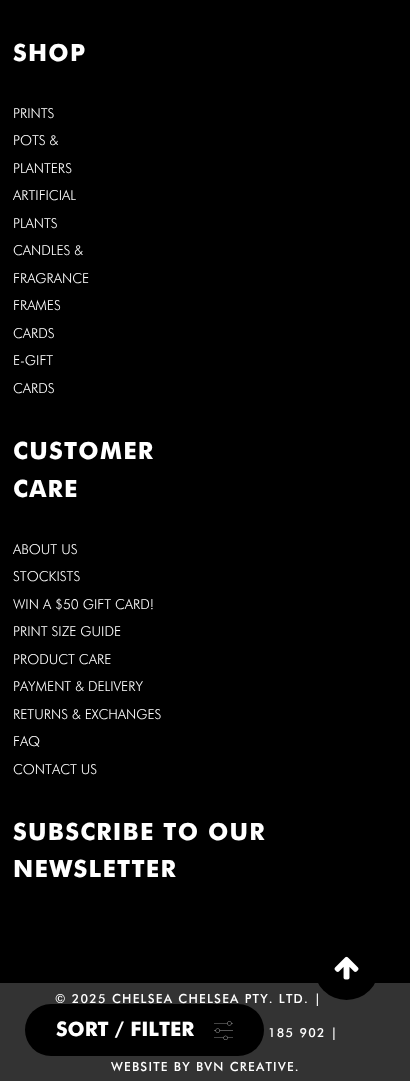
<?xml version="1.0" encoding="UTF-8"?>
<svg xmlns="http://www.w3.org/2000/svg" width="410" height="1081">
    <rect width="100%" height="100%" fill="#333333"/>
    <rect x="0" y="0" width="410" height="983" fill="#000000"/>
    <text x="13" y="61" font-family="Futura" font-size="23.75" font-weight="700" letter-spacing="1.25" fill="#FFFFFF">SHOP</text>
    <text font-family="Futura" font-size="13.75" font-weight="300" fill="#FFFFFF">
        <tspan x="13" y="118">PRINTS</tspan>
        <tspan x="13" y="145">POTS &amp;</tspan>
    </text>
    <text font-family="Futura" font-size="13.75" font-weight="300" fill="#FFFFFF">
        <tspan x="13" y="173">PLANTERS</tspan>
        <tspan x="13" y="200">ARTIFICIAL</tspan>
    </text>
    <text font-family="Futura" font-size="13.75" font-weight="300" fill="#FFFFFF">
        <tspan x="13" y="228">PLANTS</tspan>
        <tspan x="13" y="255">CANDLES &amp;</tspan>
    </text>
    <text font-family="Futura" font-size="13.75" font-weight="300" fill="#FFFFFF">
        <tspan x="13" y="283">FRAGRANCE</tspan>
        <tspan x="13" y="310">FRAMES</tspan>
    </text>
    <text font-family="Futura" font-size="13.75" font-weight="300" fill="#FFFFFF">
        <tspan x="13" y="338">CARDS</tspan>
        <tspan x="13" y="365">E-GIFT</tspan>
    </text>
    <text x="13" y="393" font-family="Futura" font-size="13.75" font-weight="300" fill="#FFFFFF">CARDS</text>
    <text font-family="Futura" font-size="23.75" font-weight="700" letter-spacing="1.25" fill="#FFFFFF">
        <tspan x="13" y="459">CUSTOMER</tspan>
        <tspan x="13" y="497">CARE</tspan>
    </text>
    <text font-family="Futura" font-size="13.75" font-weight="300" fill="#FFFFFF">
        <tspan x="13" y="554">ABOUT US</tspan>
        <tspan x="13" y="581">STOCKISTS</tspan>
    </text>
    <text font-family="Futura" font-size="13.75" font-weight="300" fill="#FFFFFF">
        <tspan x="13" y="609">WIN A $50 GIFT CARD!</tspan>
        <tspan x="13" y="636">PRINT SIZE GUIDE</tspan>
    </text>
    <text font-family="Futura" font-size="13.75" font-weight="300" fill="#FFFFFF">
        <tspan x="13" y="664">PRODUCT CARE</tspan>
        <tspan x="13" y="691">PAYMENT &amp; DELIVERY</tspan>
    </text>
    <text font-family="Futura" font-size="13.75" font-weight="300" fill="#FFFFFF">
        <tspan x="13" y="719">RETURNS &amp; EXCHANGES</tspan>
        <tspan x="13" y="746">FAQ</tspan>
    </text>
    <text x="13" y="774" font-family="Futura" font-size="13.75" font-weight="300" fill="#FFFFFF">CONTACT US</text>
    <text font-family="Futura" font-size="23.75" font-weight="700" letter-spacing="1.25" fill="#FFFFFF">
        <tspan x="13" y="840">SUBSCRIBE TO OUR</tspan>
        <tspan x="13" y="877">NEWSLETTER</tspan>
    </text>
    <text x="55" y="1003" font-family="Futura" font-size="12.5" font-weight="500" letter-spacing="1.25" fill="#FFFFFF">© 2025 CHELSEA CHELSEA PTY. LTD. |</text>
    <text x="268" y="1037" font-family="Futura" font-size="12.5" font-weight="500" letter-spacing="1.25" fill="#FFFFFF">185 902 |</text>
    <text x="111" y="1071" font-family="Futura" font-size="12.5" font-weight="500" letter-spacing="1.25" fill="#FFFFFF">WEBSITE BY BVN CREATIVE.</text>
    <circle cx="346.5" cy="967.5" r="32.5" fill="#000000"/>
    <image x="334" y="956" width="25" height="24" href="img_01.png"/>
    <rect x="25" y="1004" width="239" height="52" rx="26" fill="#000000"/>
    <text x="56" y="1036" font-family="Futura" font-size="20" font-weight="700" fill="#FFFFFF">SORT / FILTER</text>
    <image x="214" y="1021" width="19" height="19" href="img_02.png"/>
</svg>
